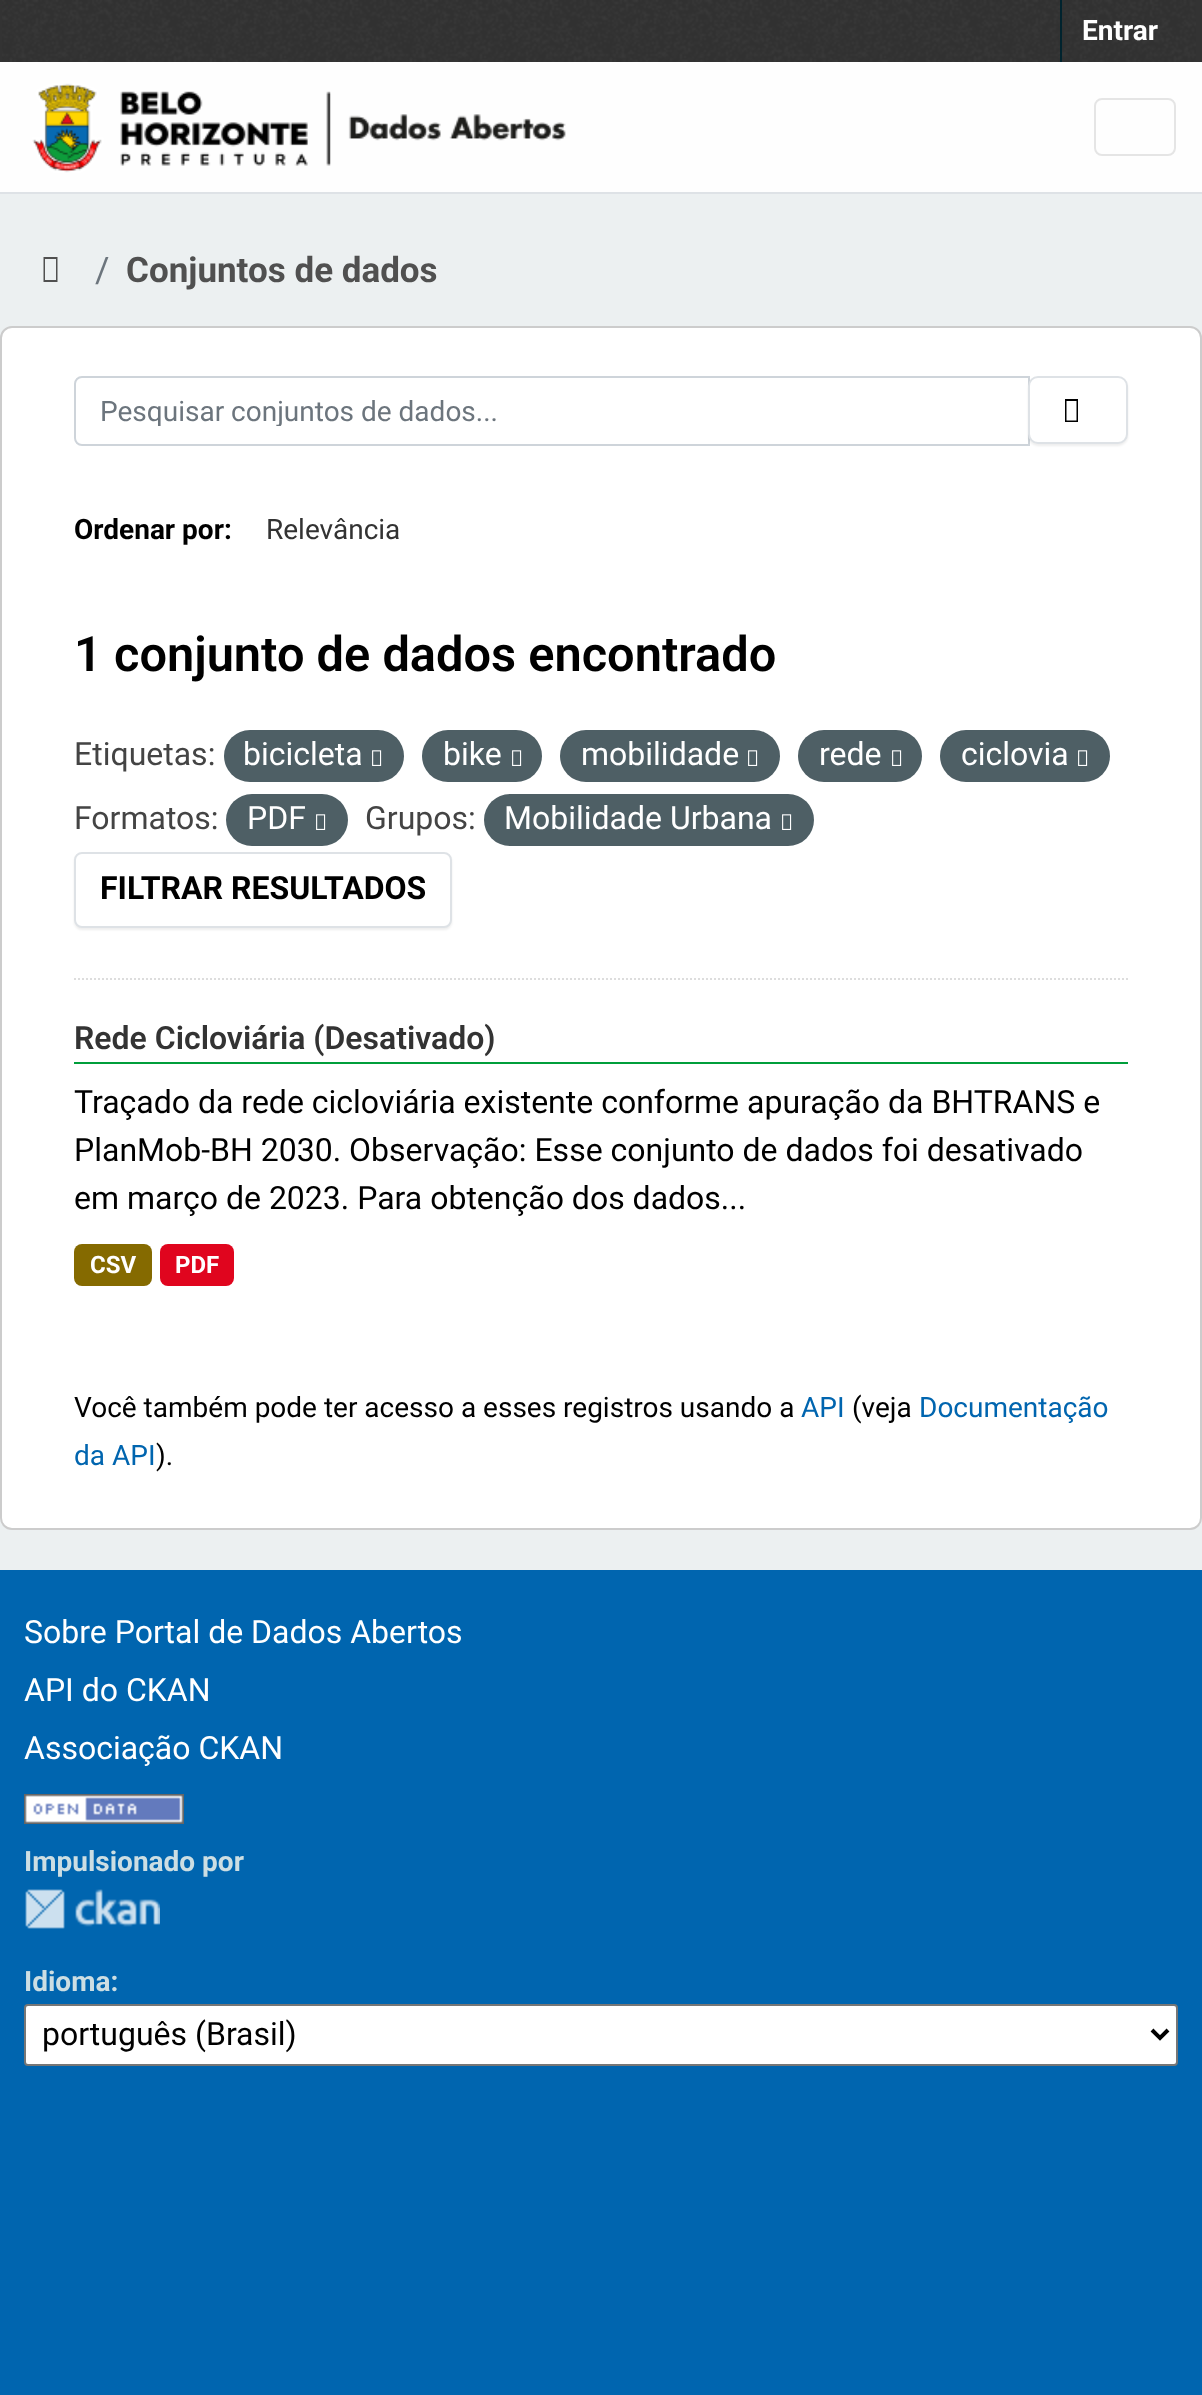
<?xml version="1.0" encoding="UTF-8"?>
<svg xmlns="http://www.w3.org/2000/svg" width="1202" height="2395">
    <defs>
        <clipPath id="clip1"><rect x="100" y="394" width="904" height="32"/></clipPath>
        <filter id="blur1" x="-50%" y="-200%" width="200%" height="500%"><feGaussianBlur stdDeviation="1"/></filter>
    </defs>
    <rect width="100%" height="100%" fill="#0065AF"/>
    <rect x="0" y="194" width="1202" height="1376" fill="#ECF0F1"/>
    <rect x="0" y="0" width="1202" height="62" fill="#333333"/>
    <image x="2" y="0" width="1194" height="62" href="img_01.png"/>
    <rect x="1060" y="0" width="2" height="62" fill="#00232E"/>
    <text x="1082" y="40" font-family="Roboto" font-size="28" font-weight="700" fill="#FFFFFF">Entrar</text>
    <rect x="0" y="62" width="1202" height="130" fill="#FEFEFE"/>
    <rect x="0" y="192" width="1202" height="2" fill="#DEE2E6"/>
    <image x="32" y="83" width="534" height="90" href="img_02.png"/>
    <rect x="1095" y="99" width="80" height="56" rx="7" fill="none" stroke="#E5E5E5" stroke-width="2"/>
    <path d="M 43.5 282 V 257 H 57.5 V 282 Z M 45 280 H 56 V 259 H 45 Z" fill="#505050"/>
    <text x="95" y="282" font-family="Roboto" font-size="35" fill="#6C757D">/</text>
    <text x="126" y="282" font-family="Roboto" font-size="35" font-weight="700" fill="#505050">Conjuntos de dados</text>
    <rect x="1" y="327" width="1200" height="1202" rx="11" fill="#FFFFFF" stroke="#CCCCCC" stroke-width="2"/>
    <path d="M 74 979 H 1128" fill="none" stroke="#DDDDDD" stroke-width="2" stroke-dasharray="2 2"/>
    <path d="M 82 377 H 1029 V 445 H 82 C 78 445 75 442 75 438 V 384 C 75 380 78 377 82 377 Z" fill="none" stroke="#CED4DA" stroke-width="2"/>
    <g clip-path="url(#clip1)">
        <text x="100" y="421" font-family="Roboto" font-size="28" fill="#6C757D">Pesquisar conjuntos de dados...</text>
    </g>
    <rect x="1028" y="378" width="100" height="68" rx="10" fill="#000000" fill-opacity="0.07" filter="url(#blur1)"/>
    <rect x="1029" y="377" width="98" height="66" rx="9" fill="#FFFFFF" stroke="#DEE2E6" stroke-width="2"/>
    <path d="M 1065 422 V 399 H 1078 V 422 Z M 1066.5 420.5 H 1076.5 V 401 H 1066.5 Z" fill="#000000"/>
    <text x="74" y="539" font-family="Roboto" font-size="28" font-weight="700" fill="#000000">Ordenar por:</text>
    <text x="266" y="539" font-family="Roboto" font-size="28" fill="#333333">Relevância</text>
    <text x="74" y="671" font-family="Roboto" font-size="48.75" font-weight="600" fill="#000000">1 conjunto de dados encontrado</text>
    <text x="74" y="765" font-family="Roboto" font-size="32" fill="#444444">Etiquetas:</text>
    <rect x="224" y="730" width="180" height="52" rx="26" fill="#4E5F65"/>
    <text x="243" y="765" font-family="Roboto" font-size="32" fill="#FFFFFF">bicicleta</text>
    <image x="372" y="750" width="10" height="16" href="img_03.png"/>
    <rect x="422" y="730" width="120" height="52" rx="26" fill="#4E5F65"/>
    <text x="443" y="765" font-family="Roboto" font-size="32" fill="#FFFFFF">bike</text>
    <image x="512" y="750" width="10" height="16" href="img_03.png"/>
    <rect x="560" y="730" width="220" height="52" rx="26" fill="#4E5F65"/>
    <text x="581" y="765" font-family="Roboto" font-size="32" fill="#FFFFFF">mobilidade</text>
    <image x="748" y="750" width="10" height="16" href="img_03.png"/>
    <rect x="798" y="730" width="124" height="52" rx="26" fill="#4E5F65"/>
    <text x="819" y="765" font-family="Roboto" font-size="32" fill="#FFFFFF">rede</text>
    <image x="892" y="750" width="10" height="16" href="img_03.png"/>
    <rect x="940" y="730" width="170" height="52" rx="26" fill="#4E5F65"/>
    <text x="961" y="765" font-family="Roboto" font-size="32" fill="#FFFFFF">ciclovia</text>
    <image x="1078" y="750" width="10" height="16" href="img_03.png"/>
    <text x="74" y="829" font-family="Roboto" font-size="32" fill="#444444">Formatos:</text>
    <rect x="226" y="794" width="122" height="52" rx="26" fill="#4E5F65"/>
    <text x="247" y="829" font-family="Roboto" font-size="32" fill="#FFFFFF">PDF</text>
    <image x="316" y="814" width="10" height="16" href="img_03.png"/>
    <text x="365" y="829" font-family="Roboto" font-size="32" fill="#444444">Grupos:</text>
    <rect x="484" y="794" width="330" height="52" rx="26" fill="#4E5F65"/>
    <text x="504" y="829" font-family="Roboto" font-size="32" fill="#FFFFFF">Mobilidade Urbana</text>
    <image x="782" y="814" width="10" height="16" href="img_03.png"/>
    <rect x="74" y="854" width="378" height="76" rx="8" fill="#000000" fill-opacity="0.07" filter="url(#blur1)"/>
    <rect x="75" y="853" width="376" height="74" rx="7" fill="#FFFFFF" stroke="#DEE2E6" stroke-width="2"/>
    <text x="100" y="899" font-family="Roboto" font-size="32" font-weight="700" fill="#000000">FILTRAR RESULTADOS</text>
    <rect x="74" y="1062" width="1054" height="2" fill="#009E3B"/>
    <text x="74" y="1049" font-family="Roboto" font-size="32" font-weight="600" fill="#333333">Rede Cicloviária (Desativado)</text>
    <text font-family="Roboto" font-size="32" fill="#000000">
        <tspan x="74" y="1113">Traçado da rede cicloviária existente conforme apuração da BHTRANS e</tspan>
        <tspan x="74" y="1161">PlanMob-BH 2030. Observação: Esse conjunto de dados foi desativado</tspan>
        <tspan x="74" y="1209">em março de 2023. Para obtenção dos dados...</tspan>
    </text>
    <rect x="74" y="1244" width="78" height="42" rx="8" fill="#856A00"/>
    <text x="90" y="1273" font-family="Roboto" font-size="24" font-weight="700" fill="#FFFFFF">CSV</text>
    <rect x="160" y="1244" width="74" height="42" rx="8" fill="#E0051E"/>
    <text x="175" y="1273" font-family="Roboto" font-size="24" font-weight="700" fill="#FFFFFF">PDF</text>
    <text x="74" y="1417" font-family="Roboto" font-size="28" fill="#000000">Você também pode ter acesso a esses registros usando a</text>
    <text x="801" y="1417" font-family="Roboto" font-size="28" fill="#0065AF">API</text>
    <text x="852" y="1417" font-family="Roboto" font-size="28" fill="#000000">(veja</text>
    <text x="919" y="1417" font-family="Roboto" font-size="28" fill="#0065AF">Documentação</text>
    <text x="74" y="1465" font-family="Roboto" font-size="28" fill="#0065AF">da API</text>
    <text x="156" y="1465" font-family="Roboto" font-size="28" fill="#000000">).</text>
    <text font-family="Roboto" font-size="32" fill="#FFFFFF">
        <tspan x="24" y="1643">Sobre Portal de Dados Abertos</tspan>
        <tspan x="24" y="1701">API do CKAN</tspan>
        <tspan x="24" y="1759">Associação CKAN</tspan>
    </text>
    <image x="24" y="1794" width="160" height="30" href="img_04.png"/>
    <text x="24" y="1871" font-family="Roboto" font-size="28" font-weight="700" fill="#CCDEE3">Impulsionado por</text>
    <image x="25" y="1889" width="135" height="40" href="img_05.png"/>
    <text x="24" y="1991" font-family="Roboto" font-size="28" font-weight="700" fill="#CCDEE3">Idioma:</text>
    <rect x="25" y="2005" width="1152" height="60" rx="3" fill="#FFFFFF" stroke="#767676" stroke-width="2"/>
    <path d="M 1152 2030 L 1160 2038 L 1168 2030" fill="none" stroke="#000000" stroke-width="4"/>
    <text x="42" y="2045" font-family="Roboto" font-size="32" fill="#000000">português (Brasil)</text>
</svg>
